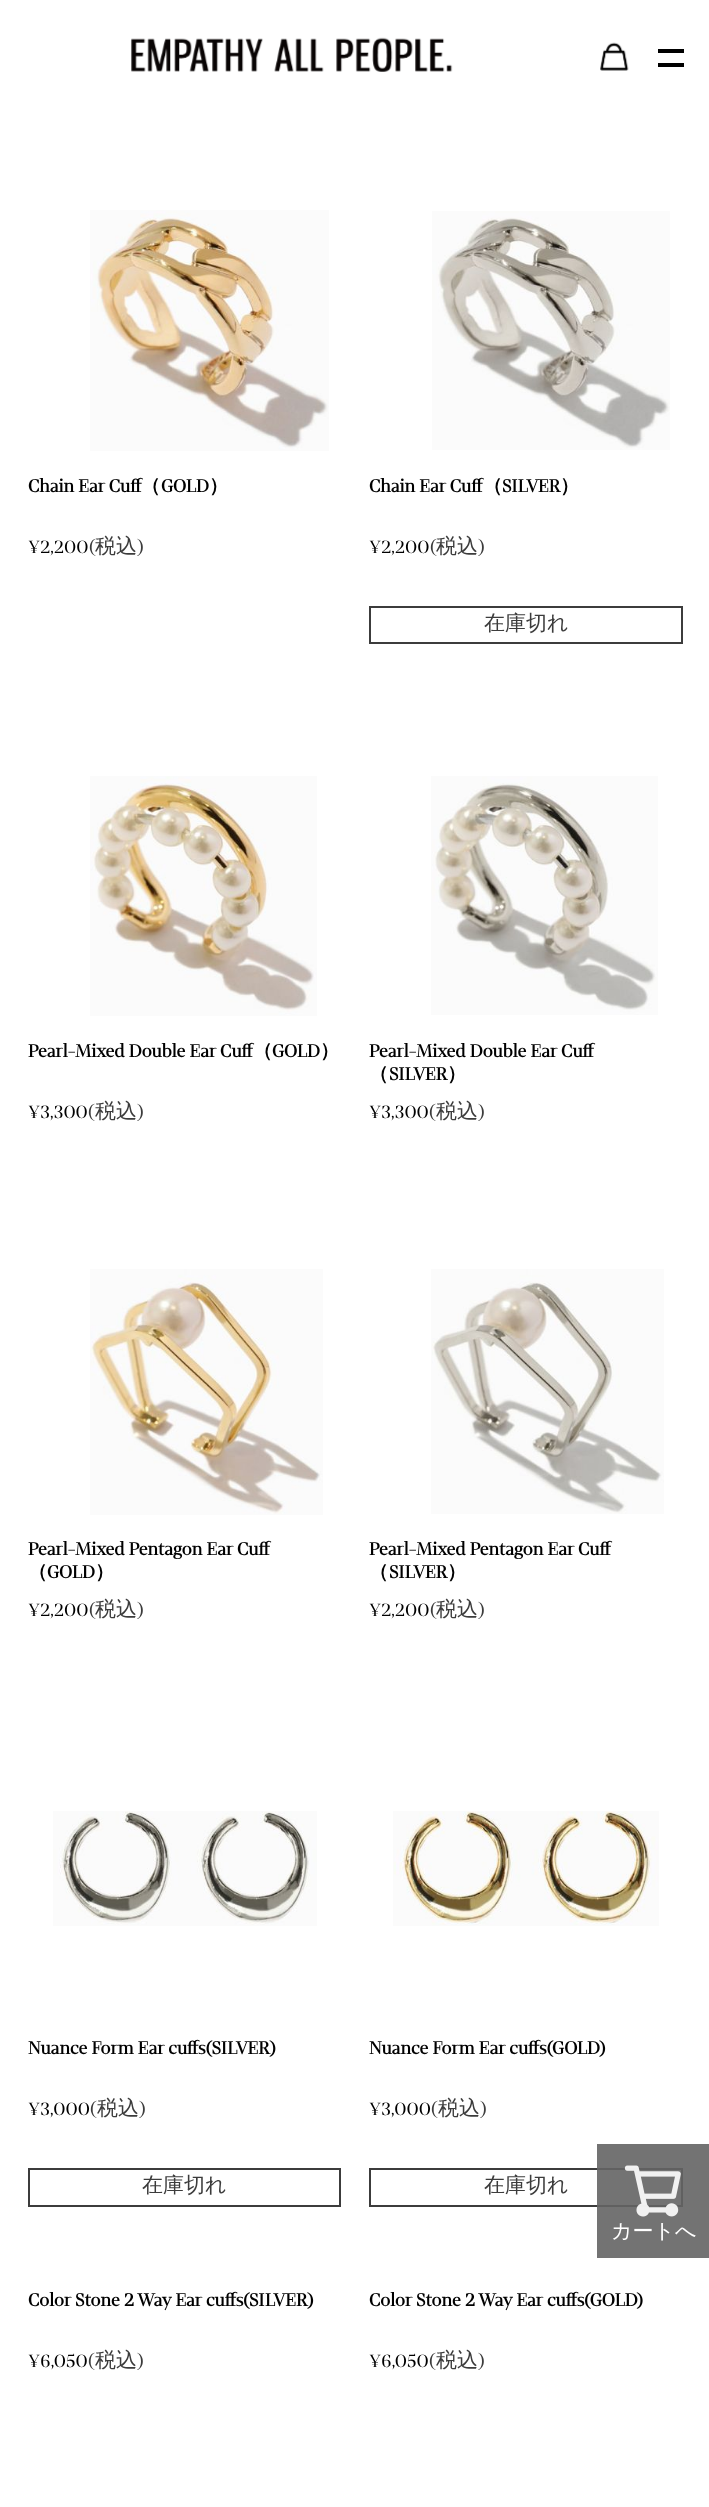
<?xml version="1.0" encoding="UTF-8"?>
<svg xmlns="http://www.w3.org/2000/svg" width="709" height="2507">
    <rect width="100%" height="100%" fill="#FFFFFF"/>
    <image x="131" y="37" width="322" height="35" href="img_01.png"/>
    <image x="600" y="42" width="29" height="29" href="img_02.png"/>
    <rect x="658" y="49" width="26" height="4" fill="#000000"/>
    <rect x="658" y="63" width="26" height="4" fill="#000000"/>
    <image x="90" y="210" width="239" height="241" href="img_03.png"/>
    <text x="28" y="492" font-family="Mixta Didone" font-size="19.25" font-weight="700" fill="#000000">Chain Ear Cuff</text>
    <text x="141" y="492" font-family="WenQuanYi Zen Hei" font-size="19.25" font-weight="700" fill="#000000">（</text>
    <text x="161" y="492" font-family="Mixta Didone" font-size="19.25" font-weight="700" fill="#000000">GOLD</text>
    <text x="209" y="492" font-family="WenQuanYi Zen Hei" font-size="19.25" font-weight="700" fill="#000000">）</text>
    <text x="28" y="553" font-family="Mixta Didone" font-size="19.25" fill="#000000">¥2,200</text>
    <text x="89" y="553" font-family="Mixta Didone" font-size="21" fill="#3C3C3C">(</text>
    <text x="95" y="553" font-family="WenQuanYi Zen Hei" font-size="21" font-weight="500" fill="#3C3C3C">税込</text>
    <text x="137" y="553" font-family="Mixta Didone" font-size="21" fill="#3C3C3C">)</text>
    <image x="432" y="211" width="238" height="239" href="img_04.png"/>
    <text x="369" y="492" font-family="Mixta Didone" font-size="19.25" font-weight="700" fill="#000000">Chain Ear Cuff</text>
    <text x="483" y="492" font-family="WenQuanYi Zen Hei" font-size="19.25" font-weight="700" fill="#000000">（</text>
    <text x="502" y="492" font-family="Mixta Didone" font-size="19.25" font-weight="700" fill="#000000">SILVER</text>
    <text x="560" y="492" font-family="WenQuanYi Zen Hei" font-size="19.25" font-weight="700" fill="#000000">）</text>
    <text x="369" y="553" font-family="Mixta Didone" font-size="19.25" fill="#000000">¥2,200</text>
    <text x="430" y="553" font-family="Mixta Didone" font-size="21" fill="#3C3C3C">(</text>
    <text x="436" y="553" font-family="WenQuanYi Zen Hei" font-size="21" font-weight="500" fill="#3C3C3C">税込</text>
    <text x="478" y="553" font-family="Mixta Didone" font-size="21" fill="#3C3C3C">)</text>
    <rect x="370" y="607" width="312" height="36" fill="none" stroke="#3C3C3C" stroke-width="2"/>
    <text x="484" y="630" font-family="WenQuanYi Zen Hei" font-size="21" font-weight="500" fill="#3C3C3C">在庫切れ</text>
    <image x="90" y="776" width="227" height="240" href="img_05.png"/>
    <text x="28" y="1057" font-family="Mixta Didone" font-size="19.25" font-weight="700" fill="#000000">Pearl-Mixed Double Ear Cuff</text>
    <text x="253" y="1057" font-family="WenQuanYi Zen Hei" font-size="19.25" font-weight="700" fill="#000000">（</text>
    <text x="272" y="1057" font-family="Mixta Didone" font-size="19.25" font-weight="700" fill="#000000">GOLD</text>
    <text x="320" y="1057" font-family="WenQuanYi Zen Hei" font-size="19.25" font-weight="700" fill="#000000">）</text>
    <text x="28" y="1118" font-family="Mixta Didone" font-size="19.25" fill="#000000">¥3,300</text>
    <text x="88" y="1118" font-family="Mixta Didone" font-size="21" fill="#3C3C3C">(</text>
    <text x="95" y="1118" font-family="WenQuanYi Zen Hei" font-size="21" font-weight="500" fill="#3C3C3C">税込</text>
    <text x="137" y="1118" font-family="Mixta Didone" font-size="21" fill="#3C3C3C">)</text>
    <image x="431" y="776" width="227" height="239" href="img_06.png"/>
    <text x="369" y="1057" font-family="Mixta Didone" font-size="19.25" font-weight="700" fill="#000000">Pearl-Mixed Double Ear Cuff</text>
    <text x="369" y="1080" font-family="WenQuanYi Zen Hei" font-size="19.25" font-weight="700" fill="#000000">（</text>
    <text x="389" y="1080" font-family="Mixta Didone" font-size="19.25" font-weight="700" fill="#000000">SILVER</text>
    <text x="447" y="1080" font-family="WenQuanYi Zen Hei" font-size="19.25" font-weight="700" fill="#000000">）</text>
    <text x="369" y="1118" font-family="Mixta Didone" font-size="19.25" fill="#000000">¥3,300</text>
    <text x="429" y="1118" font-family="Mixta Didone" font-size="21" fill="#3C3C3C">(</text>
    <text x="436" y="1118" font-family="WenQuanYi Zen Hei" font-size="21" font-weight="500" fill="#3C3C3C">税込</text>
    <text x="478" y="1118" font-family="Mixta Didone" font-size="21" fill="#3C3C3C">)</text>
    <image x="90" y="1269" width="233" height="246" href="img_07.png"/>
    <text x="28" y="1555" font-family="Mixta Didone" font-size="19.25" font-weight="700" fill="#000000">Pearl-Mixed Pentagon Ear Cuff</text>
    <text x="28" y="1578" font-family="WenQuanYi Zen Hei" font-size="19.25" font-weight="700" fill="#000000">（</text>
    <text x="47" y="1578" font-family="Mixta Didone" font-size="19.25" font-weight="700" fill="#000000">GOLD</text>
    <text x="95" y="1578" font-family="WenQuanYi Zen Hei" font-size="19.25" font-weight="700" fill="#000000">）</text>
    <text x="28" y="1616" font-family="Mixta Didone" font-size="19.25" fill="#000000">¥2,200</text>
    <text x="89" y="1616" font-family="Mixta Didone" font-size="21" fill="#3C3C3C">(</text>
    <text x="95" y="1616" font-family="WenQuanYi Zen Hei" font-size="21" font-weight="500" fill="#3C3C3C">税込</text>
    <text x="137" y="1616" font-family="Mixta Didone" font-size="21" fill="#3C3C3C">)</text>
    <image x="431" y="1269" width="233" height="245" href="img_08.png"/>
    <text x="369" y="1555" font-family="Mixta Didone" font-size="19.25" font-weight="700" fill="#000000">Pearl-Mixed Pentagon Ear Cuff</text>
    <text x="369" y="1578" font-family="WenQuanYi Zen Hei" font-size="19.25" font-weight="700" fill="#000000">（</text>
    <text x="389" y="1578" font-family="Mixta Didone" font-size="19.25" font-weight="700" fill="#000000">SILVER</text>
    <text x="447" y="1578" font-family="WenQuanYi Zen Hei" font-size="19.25" font-weight="700" fill="#000000">）</text>
    <text x="369" y="1616" font-family="Mixta Didone" font-size="19.25" fill="#000000">¥2,200</text>
    <text x="430" y="1616" font-family="Mixta Didone" font-size="21" fill="#3C3C3C">(</text>
    <text x="436" y="1616" font-family="WenQuanYi Zen Hei" font-size="21" font-weight="500" fill="#3C3C3C">税込</text>
    <text x="478" y="1616" font-family="Mixta Didone" font-size="21" fill="#3C3C3C">)</text>
    <image x="53" y="1811" width="264" height="115" href="img_09.png"/>
    <text x="28" y="2054" font-family="Mixta Didone" font-size="19.25" font-weight="700" fill="#000000">Nuance Form Ear cuffs(SILVER)</text>
    <text x="28" y="2115" font-family="Mixta Didone" font-size="19.25" fill="#000000">¥3,000</text>
    <text x="90" y="2115" font-family="Mixta Didone" font-size="21" fill="#3C3C3C">(</text>
    <text x="97" y="2115" font-family="WenQuanYi Zen Hei" font-size="21" font-weight="500" fill="#3C3C3C">税込</text>
    <text x="139" y="2115" font-family="Mixta Didone" font-size="21" fill="#3C3C3C">)</text>
    <rect x="29" y="2169" width="311" height="37" fill="none" stroke="#3C3C3C" stroke-width="2"/>
    <text x="142" y="2192" font-family="WenQuanYi Zen Hei" font-size="21" font-weight="500" fill="#3C3C3C">在庫切れ</text>
    <image x="393" y="1811" width="266" height="115" href="img_10.png"/>
    <text x="369" y="2054" font-family="Mixta Didone" font-size="19.25" font-weight="700" fill="#000000">Nuance Form Ear cuffs(GOLD)</text>
    <text x="369" y="2115" font-family="Mixta Didone" font-size="19.25" fill="#000000">¥3,000</text>
    <text x="431" y="2115" font-family="Mixta Didone" font-size="21" fill="#3C3C3C">(</text>
    <text x="438" y="2115" font-family="WenQuanYi Zen Hei" font-size="21" font-weight="500" fill="#3C3C3C">税込</text>
    <text x="480" y="2115" font-family="Mixta Didone" font-size="21" fill="#3C3C3C">)</text>
    <rect x="370" y="2169" width="312" height="37" fill="none" stroke="#3C3C3C" stroke-width="2"/>
    <text x="484" y="2192" font-family="WenQuanYi Zen Hei" font-size="21" font-weight="500" fill="#3C3C3C">在庫切れ</text>
    <text x="28" y="2306" font-family="Mixta Didone" font-size="19.25" font-weight="700" fill="#000000">Color Stone 2 Way Ear cuffs(SILVER)</text>
    <text x="28" y="2367" font-family="Mixta Didone" font-size="19.25" fill="#000000">¥6,050</text>
    <text x="88" y="2367" font-family="Mixta Didone" font-size="21" fill="#3C3C3C">(</text>
    <text x="95" y="2367" font-family="WenQuanYi Zen Hei" font-size="21" font-weight="500" fill="#3C3C3C">税込</text>
    <text x="137" y="2367" font-family="Mixta Didone" font-size="21" fill="#3C3C3C">)</text>
    <text x="369" y="2306" font-family="Mixta Didone" font-size="19.25" font-weight="700" fill="#000000">Color Stone 2 Way Ear cuffs(GOLD)</text>
    <text x="369" y="2367" font-family="Mixta Didone" font-size="19.25" fill="#000000">¥6,050</text>
    <text x="429" y="2367" font-family="Mixta Didone" font-size="21" fill="#3C3C3C">(</text>
    <text x="436" y="2367" font-family="WenQuanYi Zen Hei" font-size="21" font-weight="500" fill="#3C3C3C">税込</text>
    <text x="478" y="2367" font-family="Mixta Didone" font-size="21" fill="#3C3C3C">)</text>
    <rect x="597" y="2144" width="112" height="114" fill="#646464" fill-opacity="0.9"/>
    <image x="624" y="2165" width="57" height="52" href="img_11.png"/>
    <text x="611" y="2238" font-family="WenQuanYi Zen Hei" font-size="21" font-weight="500" fill="#FFFFFF">カートへ</text>
</svg>
